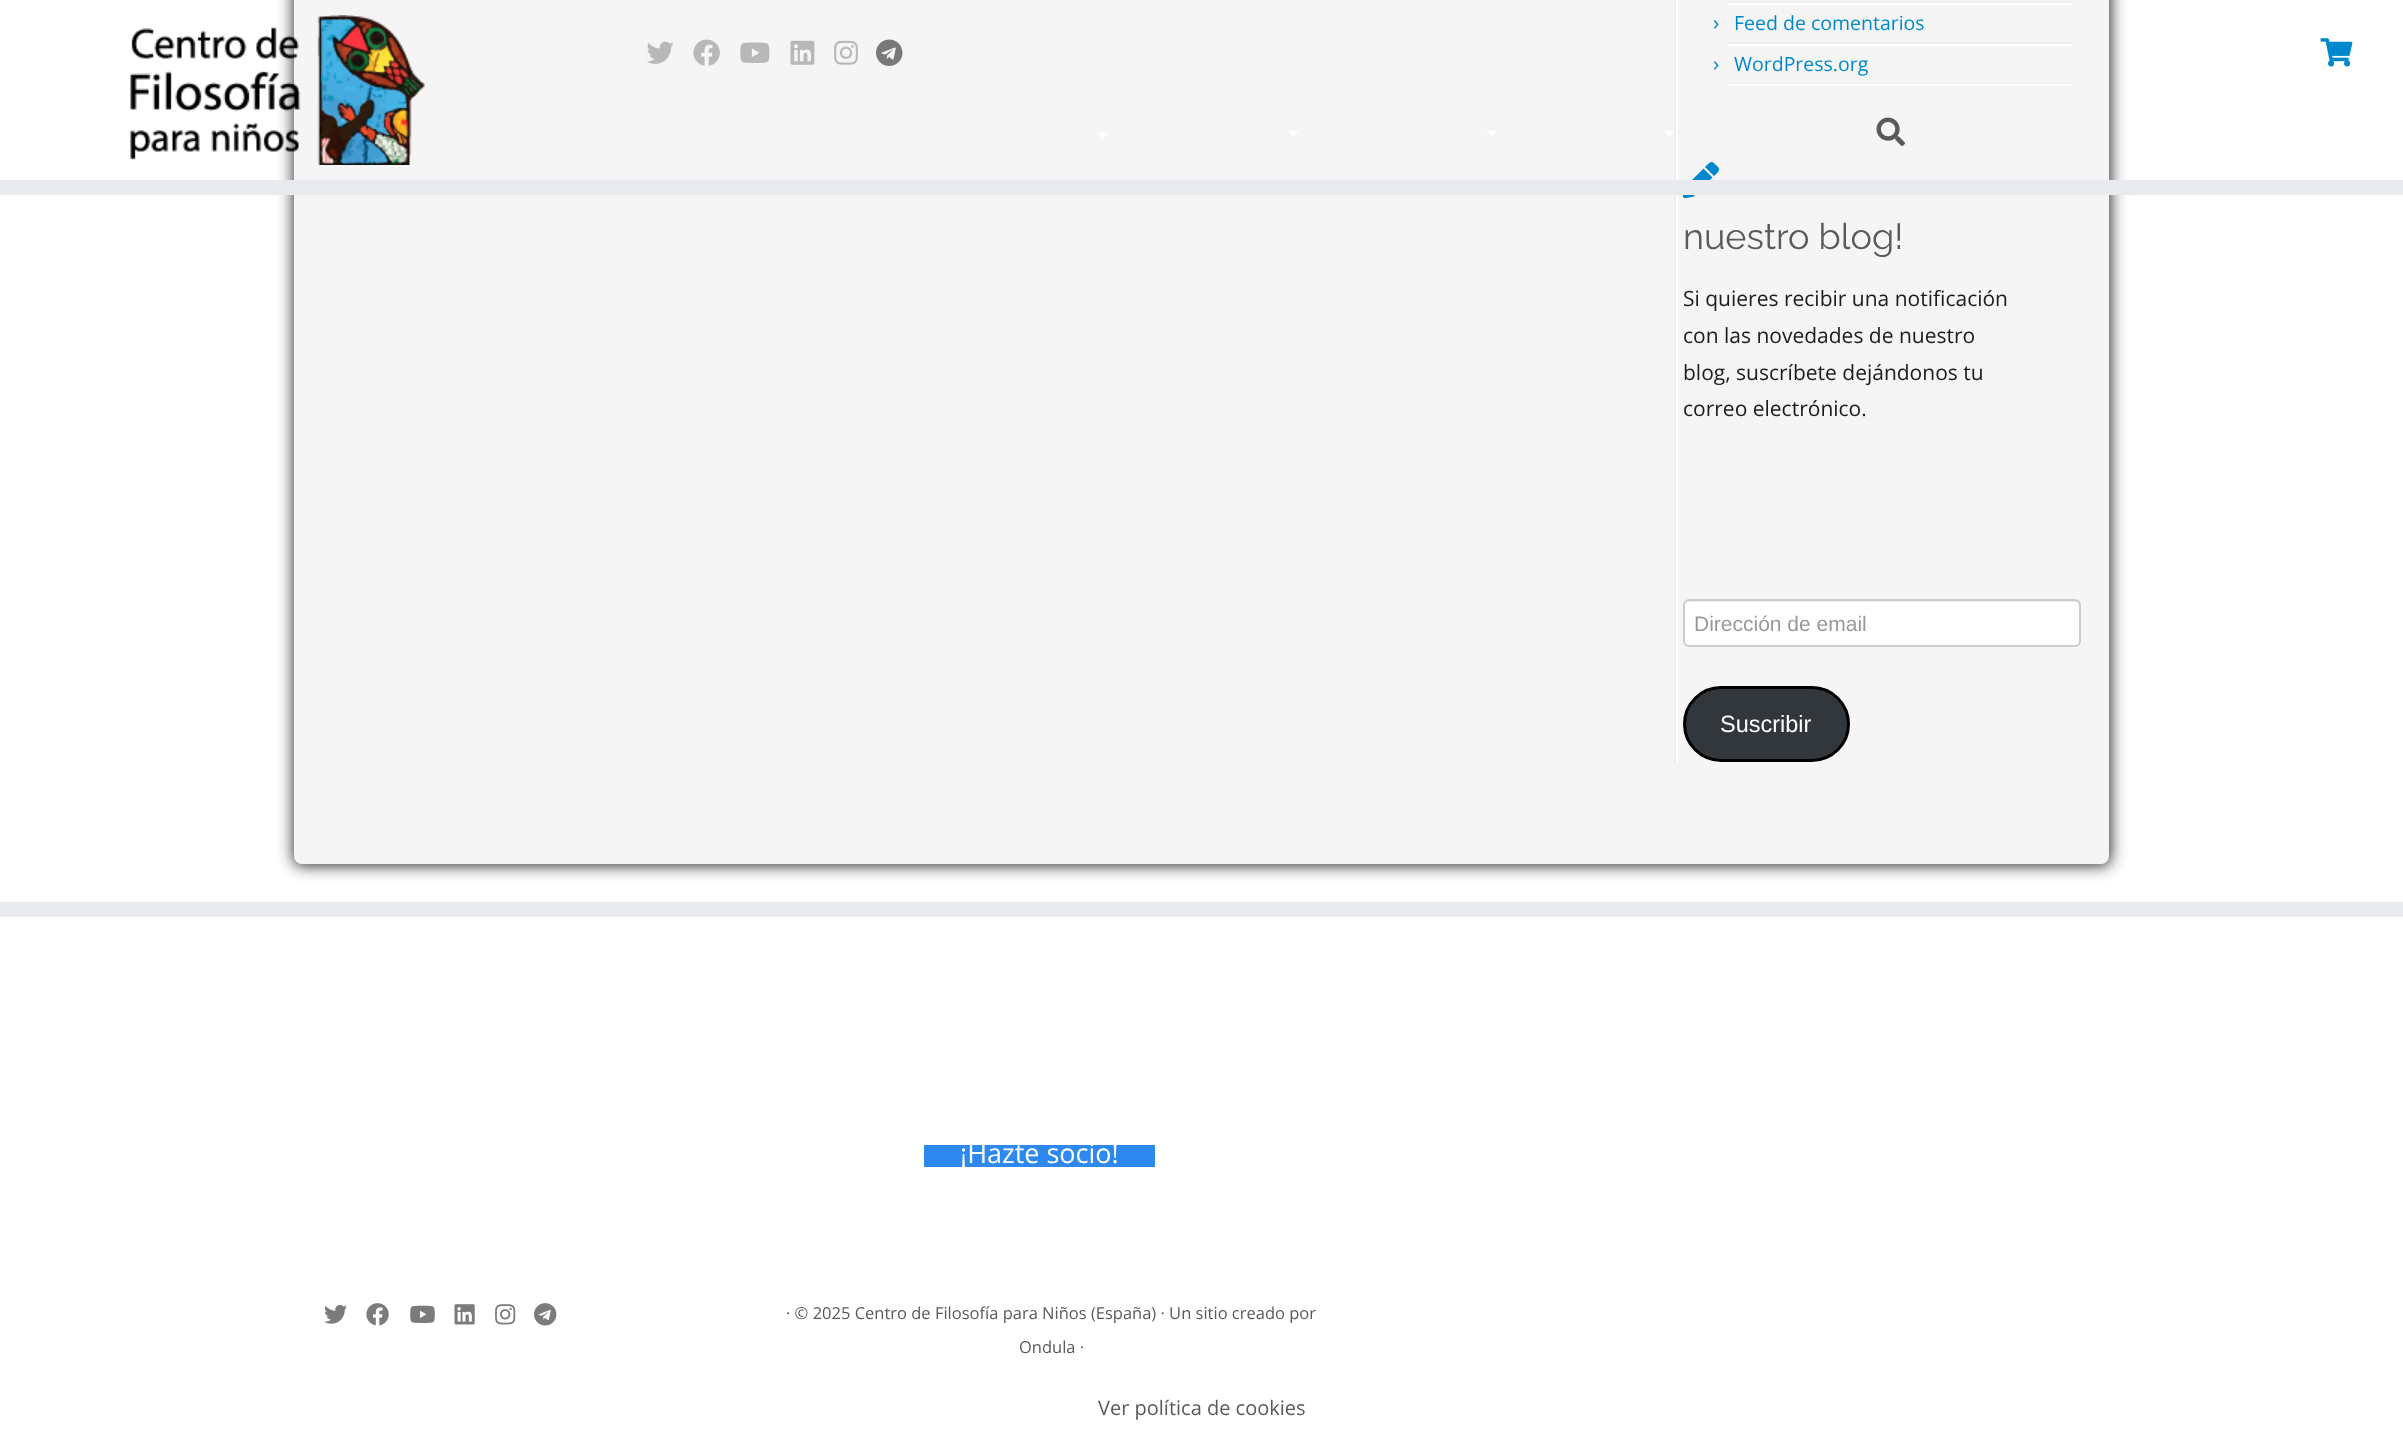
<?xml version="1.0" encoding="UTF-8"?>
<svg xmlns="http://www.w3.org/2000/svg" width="2403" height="1432">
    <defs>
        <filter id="blur1" x="-50%" y="-200%" width="200%" height="500%"><feGaussianBlur stdDeviation="7.5"/></filter>
    </defs>
    <rect width="100%" height="100%" fill="#FFFFFF"/>
    <rect x="293" y="-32" width="1818" height="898" rx="9" fill="#333333" filter="url(#blur1)"/>
    <rect x="294" y="-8" width="1815" height="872" rx="8" fill="#F5F5F5"/>
    <rect x="1674" y="0" width="2" height="762" fill="#EEEEEE"/>
    <rect x="1676" y="0" width="2" height="762" fill="#FFFFFF"/>
    <path d="M 1703.5 168.5 L 1712.5 177.5 L 1693 197 C 1681 198.5 1682.5 200 1684 188 Z M 1718 167 C 1721.5 170.5 1716 174 1714 176 L 1705 167 C 1712 160 1711.5 160.5 1718 167 Z" fill="#0088CC"/>
    <rect x="0" y="180" width="2403" height="15" fill="#E9EAEE"/>
    <image x="130" y="15" width="295" height="150" href="img_01.png"/>
    <image x="646" y="41" width="28" height="23" href="img_02.png"/>
    <image x="693" y="39" width="27" height="27" href="img_03.png"/>
    <image x="740" y="42" width="30" height="21" href="img_04.png"/>
    <image x="790" y="40" width="25" height="25" href="img_05.png"/>
    <image x="834" y="40" width="24" height="25" href="img_06.png"/>
    <image x="876" y="39" width="27" height="27" href="img_07.png"/>
    <image x="2320" y="38" width="33" height="29" href="img_08.png"/>
    <path d="M 1096.5 132.5 L 1108.5 133 L 1102.5 139 Z" fill="#FDFDFD"/>
    <path d="M 1287 130.5 H 1299 L 1293 136.5 Z" fill="#FDFDFD"/>
    <path d="M 1485 130.5 H 1497 L 1491.5 136.5 Z" fill="#FDFDFD"/>
    <path d="M 1663 130.5 H 1675 L 1669 136.5 Z" fill="#FDFDFD"/>
    <image x="1876" y="117" width="29" height="29" href="img_09.png"/>
    <rect x="1728" y="2" width="344" height="1" fill="#EEEEEE"/>
    <rect x="1728" y="3" width="344" height="2" fill="#FFFFFF"/>
    <rect x="1728" y="42" width="344" height="2" fill="#EEEEEE"/>
    <text x="1713" y="30" font-family="Open Sans" font-size="21" fill="#0088CC">›</text>
    <text x="1734" y="30" font-family="Open Sans" font-size="19.5" fill="#0088CC">Feed de comentarios</text>
    <rect x="1728" y="44" width="344" height="2" fill="#FFFFFF"/>
    <rect x="1728" y="83" width="344" height="1" fill="#EEEEEE"/>
    <text x="1713" y="71" font-family="Open Sans" font-size="21" fill="#0088CC">›</text>
    <text x="1734" y="71" font-family="Open Sans" font-size="19.5" fill="#0088CC">WordPress.org</text>
    <rect x="1728" y="84" width="344" height="2" fill="#FFFFFF"/>
    <text x="1683" y="249" font-family="Raleway" font-size="36" fill="#5A5A5A">nuestro blog!</text>
    <text font-family="Open Sans" font-size="21" fill="#1C1C1C">
        <tspan x="1683" y="306">Si quieres recibir una notificación</tspan>
        <tspan x="1683" y="343">con las novedades de nuestro</tspan>
        <tspan x="1683" y="380">blog, suscríbete dejándonos tu</tspan>
        <tspan x="1683" y="416">correo electrónico.</tspan>
    </text>
    <rect x="1683" y="599" width="398" height="48" rx="6" fill="#FFFFFF"/>
    <path d="M 1689 602 H 2074 C 2077 602 2079 604 2079 606 V 605 C 2079 602 2077 600 2074 600 H 1690 C 1688 600 1686 602 1685 604 C 1686 603 1688 602 1689 602 Z" fill="#ECECEC"/>
    <rect x="1684" y="600" width="396" height="46" rx="5" fill="none" stroke="#CCCCCC" stroke-width="2"/>
    <text x="1694" y="631" font-family="Liberation Sans" font-size="21" fill="#999999">Dirección de email</text>
    <rect x="1684.5" y="687.5" width="164" height="73" rx="36.5" fill="#32373C" stroke="#000000" stroke-width="3"/>
    <text x="1720" y="732" font-family="Liberation Sans" font-size="23.5" fill="#FFFFFF">Suscribir</text>
    <rect x="0" y="902" width="2403" height="15" fill="#E9EAEE"/>
    <rect x="924" y="1145" width="231" height="22" fill="#2D89EF"/>
    <text x="960" y="1163" font-family="Open Sans" font-size="27" fill="#FFFFFF">¡Hazte socio!</text>
    <image x="324" y="1305" width="23" height="19" href="img_10.png"/>
    <image x="366" y="1303" width="23" height="23" href="img_11.png"/>
    <image x="410" y="1305" width="25" height="18" href="img_12.png"/>
    <image x="454" y="1304" width="21" height="21" href="img_13.png"/>
    <image x="495" y="1304" width="21" height="21" href="img_14.png"/>
    <image x="534" y="1303" width="23" height="23" href="img_15.png"/>
    <text x="786" y="1319" font-family="Open Sans" font-size="16.5" fill="#5A5A5A">· © 2025 Centro de Filosofía para Niños (España) · Un sitio creado por</text>
    <text x="1019" y="1353" font-family="Open Sans" font-size="16.5" fill="#5A5A5A">Ondula ·</text>
    <text x="1098" y="1415" font-family="Open Sans" font-size="20" fill="#5A5A5A">Ver política de cookies</text>
</svg>
